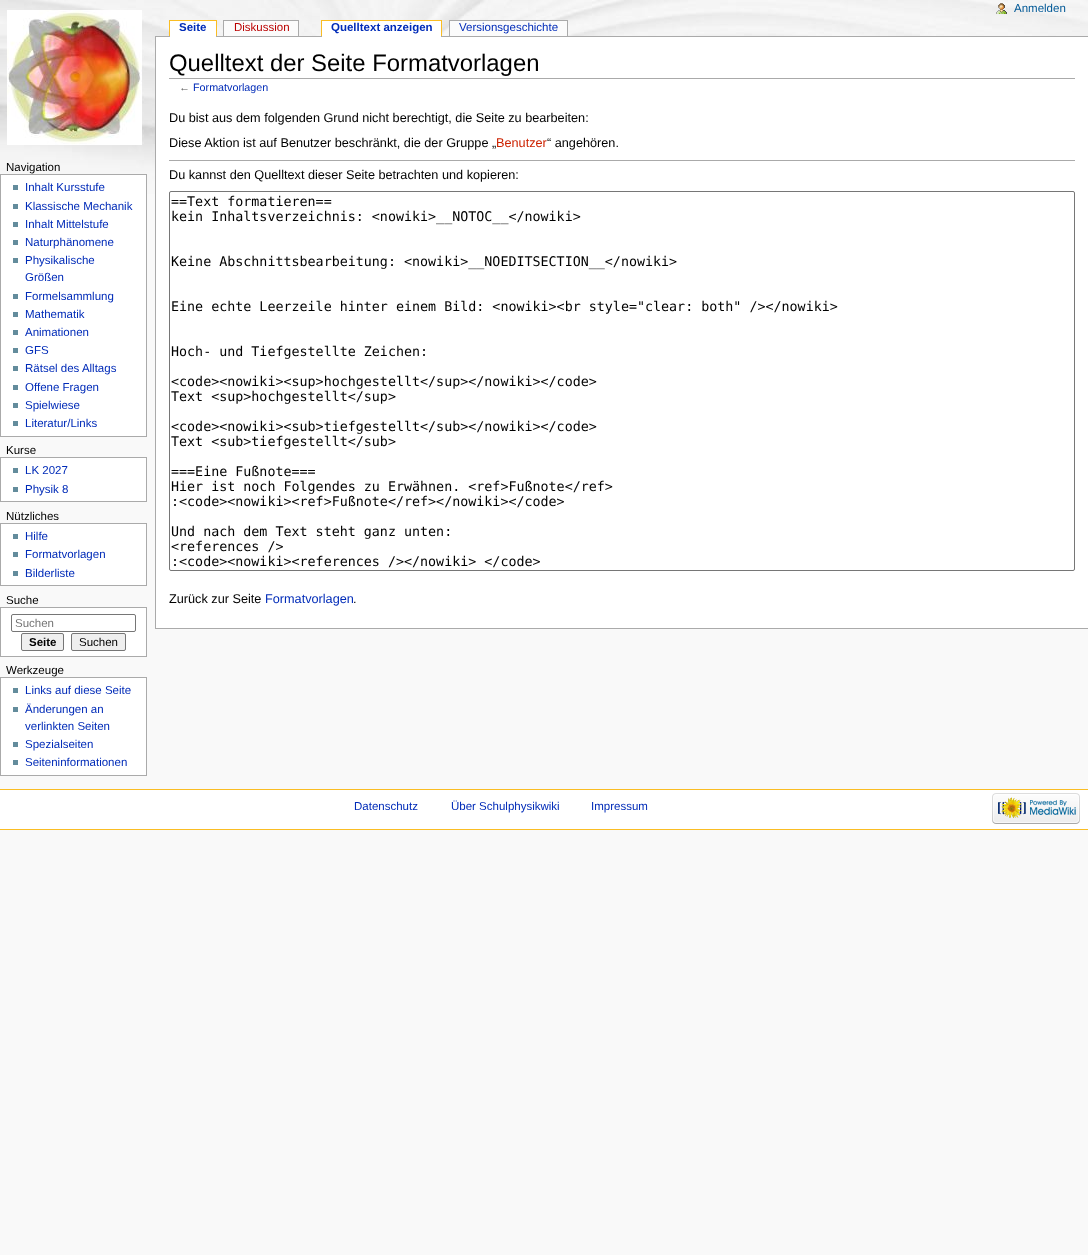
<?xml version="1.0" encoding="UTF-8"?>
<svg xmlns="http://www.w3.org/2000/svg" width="1088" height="1255">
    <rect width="100%" height="100%" fill="#F9F9F9"/>
    <image x="0" y="0" width="1088" height="194" href="img_01.png"/>
    <image x="996" y="3" width="11" height="11" href="img_02.png"/>
    <text x="1014" y="12" font-family="Liberation Sans" font-size="11.5" fill="#005896">Anmelden</text>
    <image x="7" y="10" width="135" height="135" href="img_03.png"/>
    <rect x="155" y="36" width="933" height="1" fill="#AAAAAA"/>
    <rect x="170" y="21" width="46" height="16" fill="#FFFFFF"/>
    <text x="179" y="31" font-family="Liberation Sans" font-size="11.5" font-weight="700" fill="#002BB8">Seite</text>
    <rect x="169" y="20" width="48" height="1" fill="#FABD23"/>
    <rect x="216" y="20" width="1" height="16" fill="#FABD23"/>
    <rect x="169" y="20" width="1" height="16" fill="#FABD23"/>
    <rect x="224" y="21" width="74" height="15" fill="#FBFBFB"/>
    <text x="234" y="31" font-family="Liberation Sans" font-size="11.5" fill="#BA0000">Diskussion</text>
    <rect x="223" y="20" width="76" height="1" fill="#AAAAAA"/>
    <rect x="298" y="20" width="1" height="16" fill="#AAAAAA"/>
    <rect x="223" y="20" width="1" height="16" fill="#AAAAAA"/>
    <rect x="322" y="21" width="119" height="16" fill="#FFFFFF"/>
    <text x="331" y="31" font-family="Liberation Sans" font-size="11.5" font-weight="700" fill="#002BB8">Quelltext anzeigen</text>
    <rect x="321" y="20" width="121" height="1" fill="#FABD23"/>
    <rect x="441" y="20" width="1" height="16" fill="#FABD23"/>
    <rect x="321" y="20" width="1" height="16" fill="#FABD23"/>
    <rect x="450" y="21" width="117" height="15" fill="#FBFBFB"/>
    <text x="459" y="31" font-family="Liberation Sans" font-size="11.5" fill="#002BB8">Versionsgeschichte</text>
    <rect x="449" y="20" width="119" height="1" fill="#AAAAAA"/>
    <rect x="567" y="20" width="1" height="16" fill="#AAAAAA"/>
    <rect x="449" y="20" width="1" height="16" fill="#AAAAAA"/>
    <text x="6" y="171" font-family="Liberation Sans" font-size="11.5" fill="#000000">Navigation</text>
    <rect x="0.5" y="174.5" width="146" height="262" fill="#FFFFFF" stroke="#AAAAAA"/>
    <rect x="13" y="185" width="5" height="5" fill="#638C9C"/>
    <text x="25" y="191" font-family="Liberation Sans" font-size="11.5" fill="#002BB8">Inhalt Kursstufe</text>
    <rect x="13" y="204" width="5" height="5" fill="#638C9C"/>
    <text x="25" y="210" font-family="Liberation Sans" font-size="11.5" fill="#002BB8">Klassische Mechanik</text>
    <rect x="13" y="222" width="5" height="5" fill="#638C9C"/>
    <text x="25" y="228" font-family="Liberation Sans" font-size="11.5" fill="#002BB8">Inhalt Mittelstufe</text>
    <rect x="13" y="240" width="5" height="5" fill="#638C9C"/>
    <text x="25" y="246" font-family="Liberation Sans" font-size="11.5" fill="#002BB8">Naturphänomene</text>
    <rect x="13" y="258" width="5" height="5" fill="#638C9C"/>
    <text font-family="Liberation Sans" font-size="11.5" fill="#002BB8">
        <tspan x="25" y="264">Physikalische</tspan>
        <tspan x="25" y="281">Größen</tspan>
    </text>
    <rect x="13" y="294" width="5" height="5" fill="#638C9C"/>
    <text x="25" y="300" font-family="Liberation Sans" font-size="11.5" fill="#002BB8">Formelsammlung</text>
    <rect x="13" y="312" width="5" height="5" fill="#638C9C"/>
    <text x="25" y="318" font-family="Liberation Sans" font-size="11.5" fill="#002BB8">Mathematik</text>
    <rect x="13" y="330" width="5" height="5" fill="#638C9C"/>
    <text x="25" y="336" font-family="Liberation Sans" font-size="11.5" fill="#002BB8">Animationen</text>
    <rect x="13" y="348" width="5" height="5" fill="#638C9C"/>
    <text x="25" y="354" font-family="Liberation Sans" font-size="11.5" fill="#002BB8">GFS</text>
    <rect x="13" y="366" width="5" height="5" fill="#638C9C"/>
    <text x="25" y="372" font-family="Liberation Sans" font-size="11.5" fill="#002BB8">Rätsel des Alltags</text>
    <rect x="13" y="385" width="5" height="5" fill="#638C9C"/>
    <text x="25" y="391" font-family="Liberation Sans" font-size="11.5" fill="#002BB8">Offene Fragen</text>
    <rect x="13" y="403" width="5" height="5" fill="#638C9C"/>
    <text x="25" y="409" font-family="Liberation Sans" font-size="11.5" fill="#002BB8">Spielwiese</text>
    <rect x="13" y="421" width="5" height="5" fill="#638C9C"/>
    <text x="25" y="427" font-family="Liberation Sans" font-size="11.5" fill="#002BB8">Literatur/Links</text>
    <text x="6" y="454" font-family="Liberation Sans" font-size="11.5" fill="#000000">Kurse</text>
    <rect x="0.5" y="457.5" width="146" height="44" fill="#FFFFFF" stroke="#AAAAAA"/>
    <rect x="13" y="468" width="5" height="5" fill="#638C9C"/>
    <text x="25" y="474" font-family="Liberation Sans" font-size="11.5" fill="#002BB8">LK 2027</text>
    <rect x="13" y="487" width="5" height="5" fill="#638C9C"/>
    <text x="25" y="493" font-family="Liberation Sans" font-size="11.5" fill="#002BB8">Physik 8</text>
    <text x="6" y="520" font-family="Liberation Sans" font-size="11.5" fill="#000000">Nützliches</text>
    <rect x="0.5" y="523.5" width="146" height="62" fill="#FFFFFF" stroke="#AAAAAA"/>
    <rect x="13" y="534" width="5" height="5" fill="#638C9C"/>
    <text x="25" y="540" font-family="Liberation Sans" font-size="11.5" fill="#002BB8">Hilfe</text>
    <rect x="13" y="552" width="5" height="5" fill="#638C9C"/>
    <text x="25" y="558" font-family="Liberation Sans" font-size="11.5" fill="#002BB8">Formatvorlagen</text>
    <rect x="13" y="571" width="5" height="5" fill="#638C9C"/>
    <text x="25" y="577" font-family="Liberation Sans" font-size="11.5" fill="#002BB8">Bilderliste</text>
    <text x="6" y="604" font-family="Liberation Sans" font-size="11.5" fill="#000000">Suche</text>
    <rect x="0.5" y="607.5" width="146" height="49" fill="#FFFFFF" stroke="#AAAAAA"/>
    <rect x="11.5" y="614.5" width="124" height="17" rx="1.5" fill="none" stroke="#767676"/>
    <text x="15" y="627" font-family="Liberation Sans" font-size="11.5" fill="#757575">Suchen</text>
    <rect x="21.5" y="633.5" width="42" height="17" rx="1.5" fill="#EFEFEF" stroke="#767676"/>
    <text x="29" y="646" font-family="Liberation Sans" font-size="11.5" font-weight="700" fill="#000000">Seite</text>
    <rect x="71.5" y="633.5" width="54" height="17" rx="1.5" fill="#EFEFEF" stroke="#767676"/>
    <text x="79" y="646" font-family="Liberation Sans" font-size="11.5" fill="#000000">Suchen</text>
    <text x="6" y="674" font-family="Liberation Sans" font-size="11.5" fill="#000000">Werkzeuge</text>
    <rect x="0.5" y="677.5" width="146" height="98" fill="#FFFFFF" stroke="#AAAAAA"/>
    <rect x="13" y="688" width="5" height="5" fill="#638C9C"/>
    <text x="25" y="694" font-family="Liberation Sans" font-size="11.5" fill="#002BB8">Links auf diese Seite</text>
    <rect x="13" y="707" width="5" height="5" fill="#638C9C"/>
    <text font-family="Liberation Sans" font-size="11.5" fill="#002BB8">
        <tspan x="25" y="713">Änderungen an</tspan>
        <tspan x="25" y="730">verlinkten Seiten</tspan>
    </text>
    <rect x="13" y="742" width="5" height="5" fill="#638C9C"/>
    <text x="25" y="748" font-family="Liberation Sans" font-size="11.5" fill="#002BB8">Spezialseiten</text>
    <rect x="13" y="760" width="5" height="5" fill="#638C9C"/>
    <text x="25" y="766" font-family="Liberation Sans" font-size="11.5" fill="#002BB8">Seiteninformationen</text>
    <rect x="156" y="37" width="932" height="591" fill="#FFFFFF"/>
    <rect x="155" y="628" width="933" height="1" fill="#AAAAAA"/>
    <rect x="155" y="36" width="1" height="593" fill="#AAAAAA"/>
    <rect x="169" y="78" width="906" height="1" fill="#AAAAAA"/>
    <text x="169" y="71" font-family="Liberation Sans" font-size="23.9" fill="#000000">Quelltext der Seite Formatvorlagen</text>
    <text x="179" y="91" font-family="Liberation Sans" font-size="10.75" fill="#545454">←</text>
    <text x="193" y="91" font-family="Liberation Sans" font-size="10.75" fill="#002BB8">Formatvorlagen</text>
    <text font-family="Liberation Sans" font-size="12.7" fill="#000000">
        <tspan x="169" y="122">Du bist aus dem folgenden Grund nicht berechtigt, die Seite zu bearbeiten:</tspan>
        <tspan x="169" y="147">Diese Aktion ist auf Benutzer beschränkt, die der Gruppe „</tspan>
    </text>
    <text x="496" y="147" font-family="Liberation Sans" font-size="12.7" fill="#CC2200">Benutzer</text>
    <text x="547" y="147" font-family="Liberation Sans" font-size="12.7" fill="#000000">“ angehören.</text>
    <rect x="169" y="160" width="906" height="1" fill="#AAAAAA"/>
    <text x="169" y="179" font-family="Liberation Sans" font-size="12.7" fill="#000000">Du kannst den Quelltext dieser Seite betrachten und kopieren:</text>
    <rect x="169.5" y="191.5" width="905" height="379" rx="1.5" fill="none" stroke="#767676"/>
    <text font-family="DejaVu Sans Mono" font-size="13.35" fill="#000000">
        <tspan x="171" y="206">==Text formatieren==</tspan>
        <tspan x="171" y="221">kein Inhaltsverzeichnis: &lt;nowiki&gt;__NOTOC__&lt;/nowiki&gt;</tspan>
    </text>
    <text x="171" y="266" font-family="DejaVu Sans Mono" font-size="13.35" fill="#000000">Keine Abschnittsbearbeitung: &lt;nowiki&gt;__NOEDITSECTION__&lt;/nowiki&gt;</text>
    <text x="171" y="311" font-family="DejaVu Sans Mono" font-size="13.35" fill="#000000">Eine echte Leerzeile hinter einem Bild: &lt;nowiki&gt;&lt;br style="clear: both" /&gt;&lt;/nowiki&gt;</text>
    <text x="171" y="356" font-family="DejaVu Sans Mono" font-size="13.35" fill="#000000">Hoch- und Tiefgestellte Zeichen:</text>
    <text font-family="DejaVu Sans Mono" font-size="13.35" fill="#000000">
        <tspan x="171" y="386">&lt;code&gt;&lt;nowiki&gt;&lt;sup&gt;hochgestellt&lt;/sup&gt;&lt;/nowiki&gt;&lt;/code&gt;</tspan>
        <tspan x="171" y="401">Text &lt;sup&gt;hochgestellt&lt;/sup&gt;</tspan>
    </text>
    <text font-family="DejaVu Sans Mono" font-size="13.35" fill="#000000">
        <tspan x="171" y="431">&lt;code&gt;&lt;nowiki&gt;&lt;sub&gt;tiefgestellt&lt;/sub&gt;&lt;/nowiki&gt;&lt;/code&gt;</tspan>
        <tspan x="171" y="446">Text &lt;sub&gt;tiefgestellt&lt;/sub&gt;</tspan>
    </text>
    <text font-family="DejaVu Sans Mono" font-size="13.35" fill="#000000">
        <tspan x="171" y="476">===Eine Fußnote===</tspan>
        <tspan x="171" y="491">Hier ist noch Folgendes zu Erwähnen. &lt;ref&gt;Fußnote&lt;/ref&gt;</tspan>
        <tspan x="171" y="506">:&lt;code&gt;&lt;nowiki&gt;&lt;ref&gt;Fußnote&lt;/ref&gt;&lt;/nowiki&gt;&lt;/code&gt;</tspan>
    </text>
    <text font-family="DejaVu Sans Mono" font-size="13.35" fill="#000000">
        <tspan x="171" y="536">Und nach dem Text steht ganz unten:</tspan>
        <tspan x="171" y="551">&lt;references /&gt;</tspan>
        <tspan x="171" y="566">:&lt;code&gt;&lt;nowiki&gt;&lt;references /&gt;&lt;/nowiki&gt; &lt;/code&gt;</tspan>
    </text>
    <text x="169" y="603" font-family="Liberation Sans" font-size="12.7" fill="#000000">Zurück zur Seite</text>
    <text x="265" y="603" font-family="Liberation Sans" font-size="12.7" fill="#002BB8">Formatvorlagen</text>
    <text x="353" y="603" font-family="Liberation Sans" font-size="12.7" fill="#000000">.</text>
    <rect x="0" y="790" width="1088" height="39" fill="#FFFFFF"/>
    <rect x="0" y="789" width="1088" height="1" fill="#FABD23"/>
    <rect x="0" y="829" width="1088" height="1" fill="#FABD23"/>
    <text x="354" y="810" font-family="Liberation Sans" font-size="11.5" fill="#002BB8">Datenschutz</text>
    <text x="451" y="810" font-family="Liberation Sans" font-size="11.5" fill="#002BB8">Über Schulphysikwiki</text>
    <text x="591" y="810" font-family="Liberation Sans" font-size="11.5" fill="#002BB8">Impressum</text>
    <image x="992" y="793" width="88" height="31" href="img_04.png"/>
</svg>
